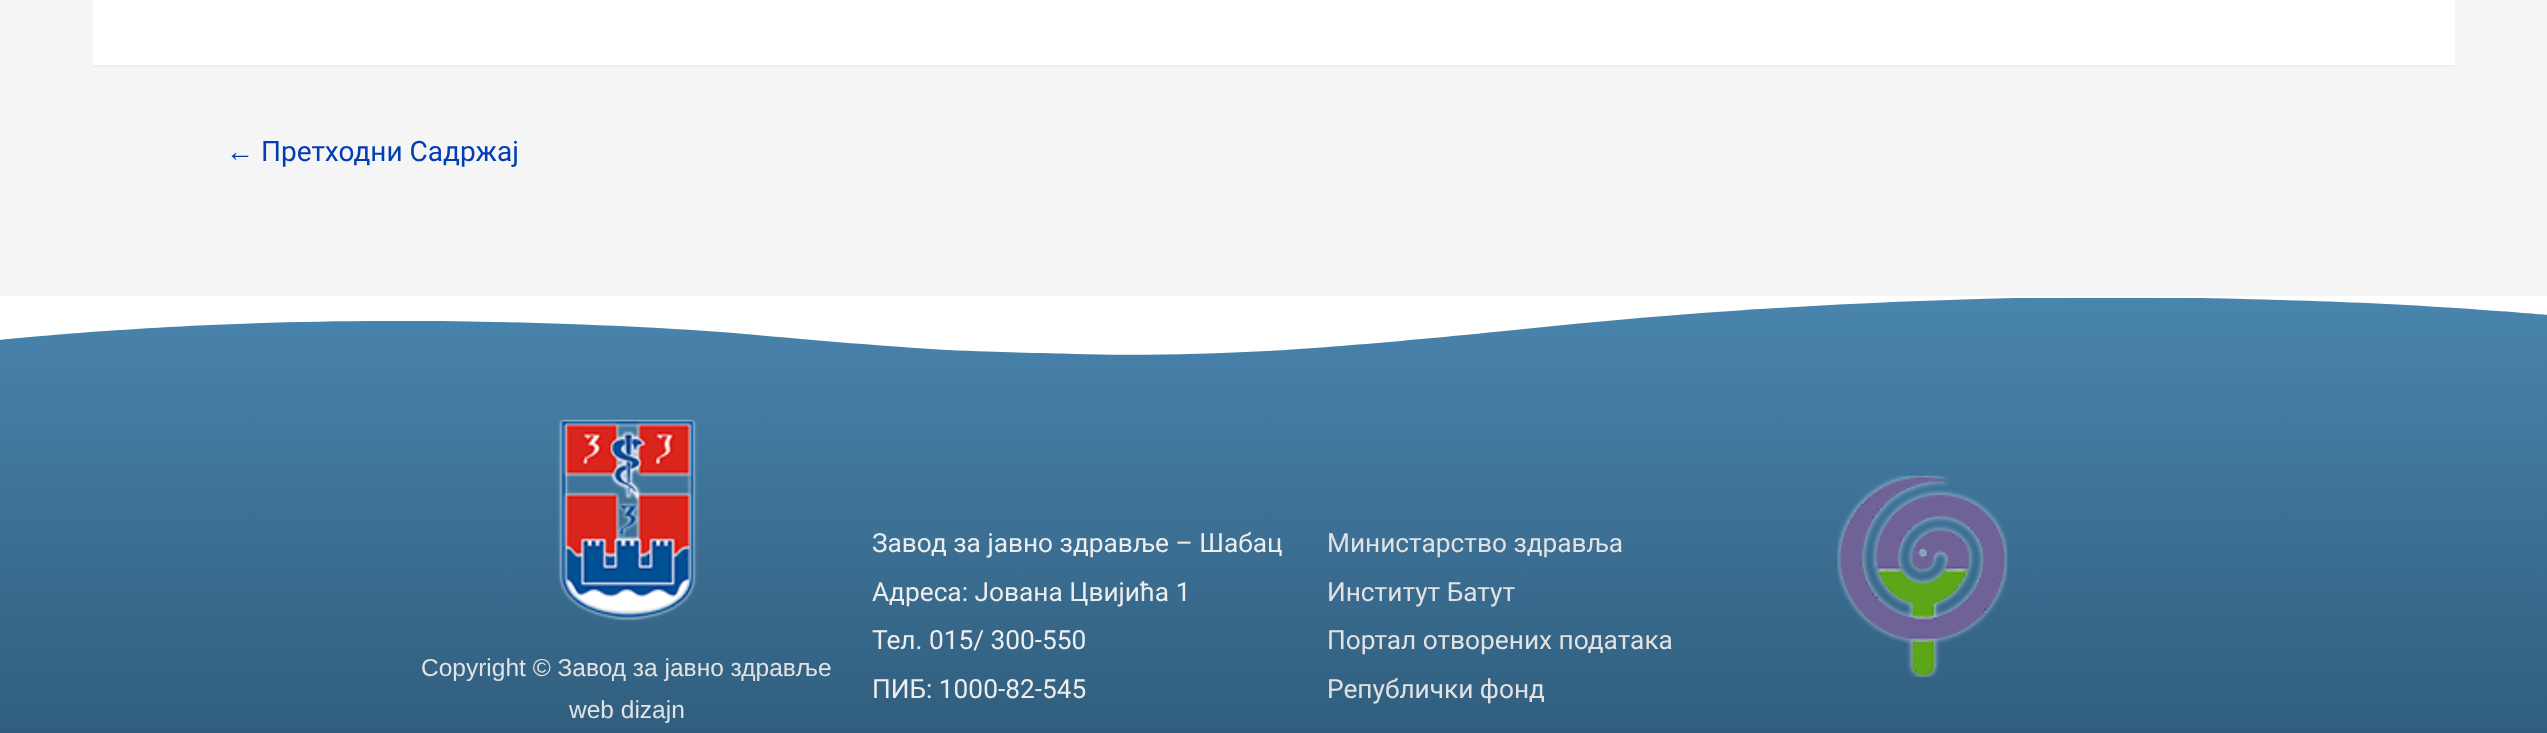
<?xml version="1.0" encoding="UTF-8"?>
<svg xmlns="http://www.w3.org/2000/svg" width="2547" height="733">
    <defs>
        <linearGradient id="g1" gradientUnits="userSpaceOnUse" x1="1274" y1="297" x2="1274" y2="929"><stop offset="0" stop-color="#4985AE"/><stop offset="1" stop-color="#254C68"/></linearGradient>
        <clipPath id="clip1"><rect x="0" y="296" width="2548" height="61"/></clipPath>
    </defs>
    <rect width="100%" height="100%" fill="#F5F5F5"/>
    <rect x="93" y="0" width="2362" height="65" fill="#FFFFFF"/>
    <rect x="93" y="65" width="2362" height="2" fill="#EEEEEE"/>
    <text x="226" y="161" font-family="Liberation Sans" font-size="28" fill="#013CB2">←</text>
    <text x="261" y="161" font-family="Roboto" font-size="28" fill="#013CB2">Претходни Садржај</text>
    <rect x="0" y="298" width="2547" height="435" fill="url(#g1)"/>
    <g clip-path="url(#clip1)">
        <path d="M 2015 298 C 1864 302 1717 309 1524 329 C 1448 337 1328 348 1267 351 C 1207 354 1133 356 1075 354 C 1049 353 1017 353 947 350 C 878 346 799 339 745 334 C 639 325 503 321 403 321 C 182 320 -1 340 -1 340 V 294 H 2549 V 315 C 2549 315 2418 303 2278 300 C 2140 296 2075 297 2015 298 Z" fill="#FFFFFF"/>
    </g>
    <image x="558" y="419" width="139" height="202" href="img_01.png"/>
    <text x="421" y="676" font-family="Liberation Sans" font-size="24.5" fill="#E2E2E2">Copyright © Завод за јавно здравље</text>
    <text x="569" y="718" font-family="Liberation Sans" font-size="24.5" fill="#E2E2E2">web dizajn</text>
    <text font-family="Roboto" font-size="26.25" fill="#EDEDED">
        <tspan x="872" y="552">Завод за јавно здравље – Шабац</tspan>
        <tspan x="872" y="601">Адреса: Јована Цвијића 1</tspan>
        <tspan x="872" y="649">Тел. 015/ 300-550</tspan>
        <tspan x="872" y="698">ПИБ: 1000-82-545</tspan>
    </text>
    <text font-family="Roboto" font-size="26.25" fill="#E2E2E2">
        <tspan x="1327" y="552">Министарство здравља</tspan>
        <tspan x="1327" y="601">Институт Батут</tspan>
        <tspan x="1327" y="649">Портал отворених података</tspan>
        <tspan x="1327" y="698">Републички фонд</tspan>
    </text>
    <image x="1837" y="475" width="171" height="202" href="img_02.png"/>
</svg>
